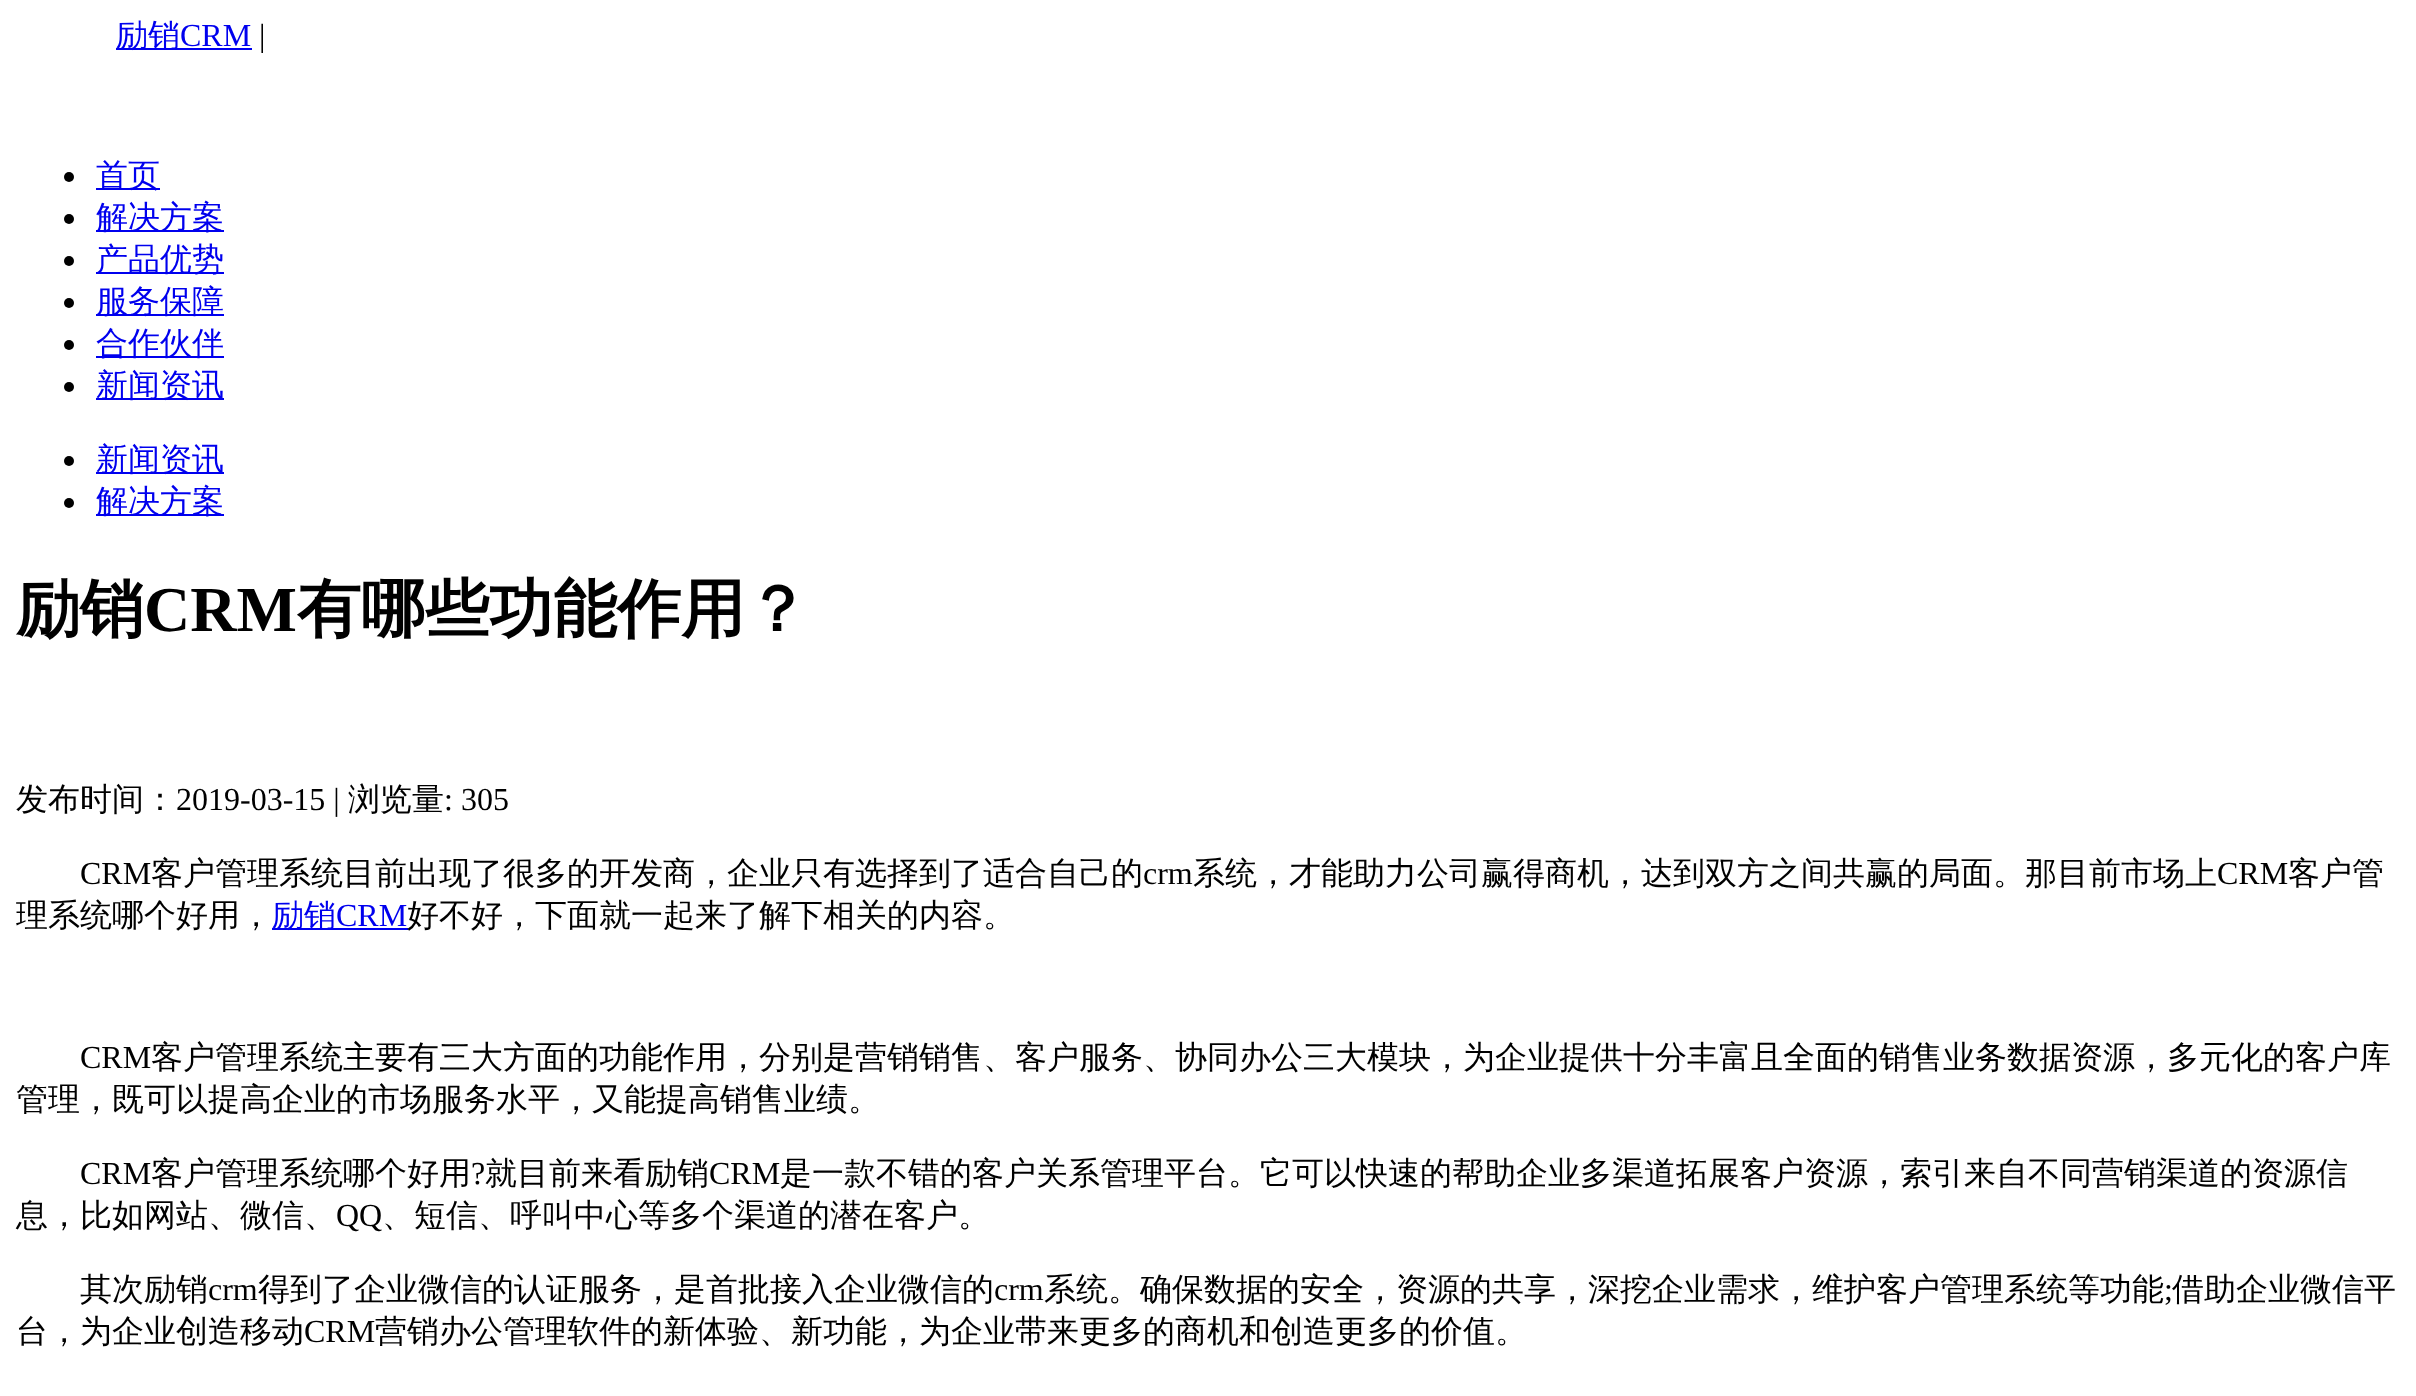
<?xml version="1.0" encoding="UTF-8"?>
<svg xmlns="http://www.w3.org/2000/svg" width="2416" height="1396">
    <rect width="100%" height="100%" fill="#FFFFFF"/>
    <rect x="116" y="48" width="136" height="2" fill="#0000EE"/>
    <text x="116" y="46" font-family="WenQuanYi Zen Hei" font-size="32" font-weight="500" fill="#0000EE">励销</text>
    <text x="180" y="46" font-family="Liberation Serif" font-size="32" fill="#0000EE">CRM</text>
    <text x="259" y="46" font-family="Liberation Serif" font-size="32" fill="#000000">|</text>
    <circle cx="69" cy="177" r="5" fill="#000000"/>
    <rect x="96" y="188" width="64" height="2" fill="#0000EE"/>
    <text x="96" y="186" font-family="WenQuanYi Zen Hei" font-size="32" font-weight="500" fill="#0000EE">首页</text>
    <circle cx="69" cy="219" r="5" fill="#000000"/>
    <rect x="96" y="230" width="128" height="2" fill="#0000EE"/>
    <text x="96" y="228" font-family="WenQuanYi Zen Hei" font-size="32" font-weight="500" fill="#0000EE">解决方案</text>
    <circle cx="69" cy="261" r="5" fill="#000000"/>
    <rect x="96" y="272" width="128" height="2" fill="#0000EE"/>
    <text x="96" y="270" font-family="WenQuanYi Zen Hei" font-size="32" font-weight="500" fill="#0000EE">产品优势</text>
    <circle cx="69" cy="303" r="5" fill="#000000"/>
    <rect x="96" y="314" width="128" height="2" fill="#0000EE"/>
    <text x="96" y="312" font-family="WenQuanYi Zen Hei" font-size="32" font-weight="500" fill="#0000EE">服务保障</text>
    <circle cx="69" cy="345" r="5" fill="#000000"/>
    <rect x="96" y="356" width="128" height="2" fill="#0000EE"/>
    <text x="96" y="354" font-family="WenQuanYi Zen Hei" font-size="32" font-weight="500" fill="#0000EE">合作伙伴</text>
    <circle cx="69" cy="387" r="5" fill="#000000"/>
    <rect x="96" y="398" width="128" height="2" fill="#0000EE"/>
    <text x="96" y="396" font-family="WenQuanYi Zen Hei" font-size="32" font-weight="500" fill="#0000EE">新闻资讯</text>
    <circle cx="69" cy="461" r="5" fill="#000000"/>
    <rect x="96" y="472" width="128" height="2" fill="#0000EE"/>
    <text x="96" y="470" font-family="WenQuanYi Zen Hei" font-size="32" font-weight="500" fill="#0000EE">新闻资讯</text>
    <circle cx="69" cy="503" r="5" fill="#000000"/>
    <rect x="96" y="514" width="128" height="2" fill="#0000EE"/>
    <text x="96" y="512" font-family="WenQuanYi Zen Hei" font-size="32" font-weight="500" fill="#0000EE">解决方案</text>
    <text x="16" y="631" font-family="WenQuanYi Zen Hei" font-size="64" font-weight="700" fill="#000000">励销</text>
    <text x="144" y="631" font-family="Liberation Serif" font-size="64" font-weight="700" fill="#000000">CRM</text>
    <text x="297" y="631" font-family="WenQuanYi Zen Hei" font-size="64" font-weight="700" fill="#000000">有哪些功能作用？</text>
    <text x="16" y="810" font-family="WenQuanYi Zen Hei" font-size="32" font-weight="500" fill="#000000">发布时间：</text>
    <text x="176" y="810" font-family="Liberation Serif" font-size="32" fill="#000000">2019-03-15 |</text>
    <text x="348" y="810" font-family="WenQuanYi Zen Hei" font-size="32" font-weight="500" fill="#000000">浏览量</text>
    <text x="444" y="810" font-family="Liberation Serif" font-size="32" fill="#000000">: 305</text>
    <text x="80" y="884" font-family="Liberation Serif" font-size="32" fill="#000000">CRM</text>
    <text x="151" y="884" font-family="WenQuanYi Zen Hei" font-size="32" font-weight="500" fill="#000000">客户管理系统目前出现了很多的开发商，企业只有选择到了适合自己的</text>
    <text x="1143" y="884" font-family="Liberation Serif" font-size="32" fill="#000000">crm</text>
    <text x="1193" y="884" font-family="WenQuanYi Zen Hei" font-size="32" font-weight="500" fill="#000000">系统，才能助力公司赢得商机，达到双方之间共赢的局面。那目前市场上</text>
    <text x="2217" y="884" font-family="Liberation Serif" font-size="32" fill="#000000">CRM</text>
    <text x="2288" y="884" font-family="WenQuanYi Zen Hei" font-size="32" font-weight="500" fill="#000000">客户管</text>
    <text x="16" y="926" font-family="WenQuanYi Zen Hei" font-size="32" font-weight="500" fill="#000000">理系统哪个好用，</text>
    <rect x="272" y="928" width="136" height="2" fill="#0000EE"/>
    <text x="272" y="926" font-family="WenQuanYi Zen Hei" font-size="32" font-weight="500" fill="#0000EE">励销</text>
    <text x="336" y="926" font-family="Liberation Serif" font-size="32" fill="#0000EE">CRM</text>
    <text x="407" y="926" font-family="WenQuanYi Zen Hei" font-size="32" font-weight="500" fill="#000000">好不好，下面就一起来了解下相关的内容。</text>
    <text x="80" y="1068" font-family="Liberation Serif" font-size="32" fill="#000000">CRM</text>
    <text x="151" y="1068" font-family="WenQuanYi Zen Hei" font-size="32" font-weight="500" fill="#000000">客户管理系统主要有三大方面的功能作用，分别是营销销售、客户服务、协同办公三大模块，为企业提供十分丰富且全面的销售业务数据资源，多元化的客户库</text>
    <text x="16" y="1110" font-family="WenQuanYi Zen Hei" font-size="32" font-weight="500" fill="#000000">管理，既可以提高企业的市场服务水平，又能提高销售业绩。</text>
    <text x="80" y="1184" font-family="Liberation Serif" font-size="32" fill="#000000">CRM</text>
    <text x="151" y="1184" font-family="WenQuanYi Zen Hei" font-size="32" font-weight="500" fill="#000000">客户管理系统哪个好用</text>
    <text x="471" y="1184" font-family="Liberation Serif" font-size="32" fill="#000000">?</text>
    <text x="485" y="1184" font-family="WenQuanYi Zen Hei" font-size="32" font-weight="500" fill="#000000">就目前来看励销</text>
    <text x="709" y="1184" font-family="Liberation Serif" font-size="32" fill="#000000">CRM</text>
    <text x="780" y="1184" font-family="WenQuanYi Zen Hei" font-size="32" font-weight="500" fill="#000000">是一款不错的客户关系管理平台。它可以快速的帮助企业多渠道拓展客户资源，索引来自不同营销渠道的资源信</text>
    <text x="16" y="1226" font-family="WenQuanYi Zen Hei" font-size="32" font-weight="500" fill="#000000">息，比如网站、微信、</text>
    <text x="336" y="1226" font-family="Liberation Serif" font-size="32" fill="#000000">QQ</text>
    <text x="382" y="1226" font-family="WenQuanYi Zen Hei" font-size="32" font-weight="500" fill="#000000">、短信、呼叫中心等多个渠道的潜在客户。</text>
    <text x="80" y="1300" font-family="WenQuanYi Zen Hei" font-size="32" font-weight="500" fill="#000000">其次励销</text>
    <text x="208" y="1300" font-family="Liberation Serif" font-size="32" fill="#000000">crm</text>
    <text x="258" y="1300" font-family="WenQuanYi Zen Hei" font-size="32" font-weight="500" fill="#000000">得到了企业微信的认证服务，是首批接入企业微信的</text>
    <text x="994" y="1300" font-family="Liberation Serif" font-size="32" fill="#000000">crm</text>
    <text x="1044" y="1300" font-family="WenQuanYi Zen Hei" font-size="32" font-weight="500" fill="#000000">系统。确保数据的安全，资源的共享，深挖企业需求，维护客户管理系统等功能</text>
    <text x="2164" y="1300" font-family="Liberation Serif" font-size="32" fill="#000000">;</text>
    <text x="2172" y="1300" font-family="WenQuanYi Zen Hei" font-size="32" font-weight="500" fill="#000000">借助企业微信平</text>
    <text x="16" y="1342" font-family="WenQuanYi Zen Hei" font-size="32" font-weight="500" fill="#000000">台，为企业创造移动</text>
    <text x="304" y="1342" font-family="Liberation Serif" font-size="32" fill="#000000">CRM</text>
    <text x="375" y="1342" font-family="WenQuanYi Zen Hei" font-size="32" font-weight="500" fill="#000000">营销办公管理软件的新体验、新功能，为企业带来更多的商机和创造更多的价值。</text>
</svg>
